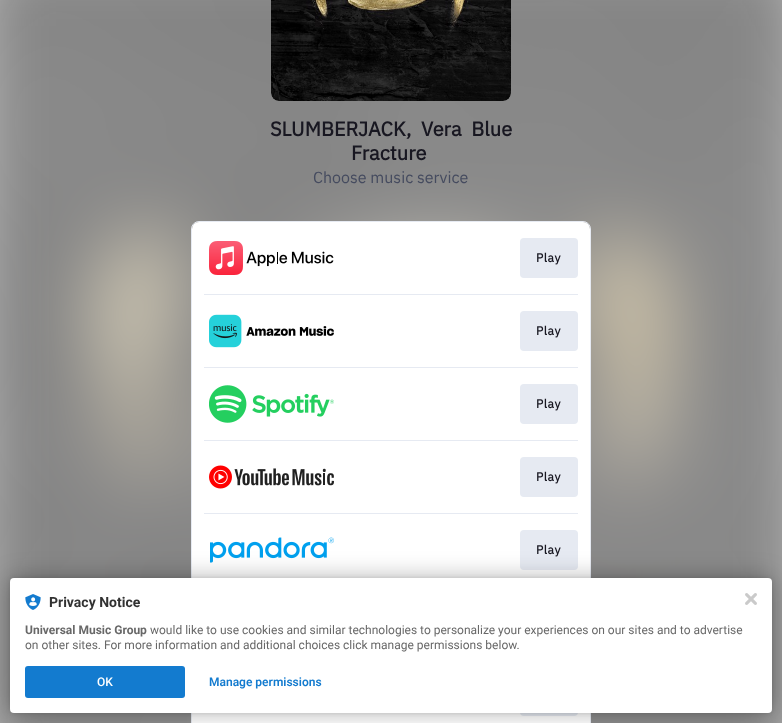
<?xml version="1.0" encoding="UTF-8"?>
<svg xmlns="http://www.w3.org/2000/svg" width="782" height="723">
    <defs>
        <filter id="blur1" x="-50%" y="-200%" width="200%" height="500%"><feGaussianBlur stdDeviation="2"/></filter>
        <filter id="blur2" x="-50%" y="-200%" width="200%" height="500%"><feGaussianBlur stdDeviation="12"/></filter>
    </defs>
    <rect width="100%" height="100%" fill="#FFFFFF"/>
    <image x="0" y="0" width="782" height="723" href="img_01.png"/>
    <image x="271" y="0" width="240" height="101" href="img_02.png"/>
    <text x="270" y="136" word-spacing="5" font-family="IBM Plex Sans" font-size="20" font-weight="700" fill="#181721">SLUMBERJACK, Vera Blue</text>
    <text x="351" y="160" font-family="IBM Plex Sans" font-size="20" font-weight="700" fill="#181721">Fracture</text>
    <text x="313" y="183" font-family="IBM Plex Sans" font-size="16" fill="#454B5F">Choose music service</text>
    <rect x="191.5" y="221.5" width="399" height="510" rx="7.5" fill="none" stroke="#E6EAF2"/>
    <rect x="192" y="222" width="398" height="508" rx="7" fill="#FFFFFF"/>
    <image x="209" y="241" width="125" height="34" href="img_03.png"/>
    <rect x="520" y="238" width="58" height="40" rx="4" fill="#E6EAF2"/>
    <text x="536" y="262" font-family="IBM Plex Sans" font-size="12" font-weight="700" letter-spacing="0.5" fill="#181721">Play</text>
    <rect x="204" y="294" width="374" height="1" fill="#E6EAF2"/>
    <image x="209" y="314" width="125" height="34" href="img_04.png"/>
    <rect x="520" y="311" width="58" height="40" rx="4" fill="#E6EAF2"/>
    <text x="536" y="335" font-family="IBM Plex Sans" font-size="12" font-weight="700" letter-spacing="0.5" fill="#181721">Play</text>
    <rect x="204" y="367" width="374" height="1" fill="#E6EAF2"/>
    <image x="209" y="385" width="125" height="38" href="img_05.png"/>
    <rect x="520" y="384" width="58" height="40" rx="4" fill="#E6EAF2"/>
    <text x="536" y="408" font-family="IBM Plex Sans" font-size="12" font-weight="700" letter-spacing="0.5" fill="#181721">Play</text>
    <rect x="204" y="440" width="374" height="1" fill="#E6EAF2"/>
    <image x="209" y="465" width="125" height="24" href="img_06.png"/>
    <rect x="520" y="457" width="58" height="40" rx="4" fill="#E6EAF2"/>
    <text x="536" y="481" font-family="IBM Plex Sans" font-size="12" font-weight="700" letter-spacing="0.5" fill="#181721">Play</text>
    <rect x="204" y="513" width="374" height="1" fill="#E6EAF2"/>
    <image x="210" y="537" width="124" height="26" href="img_07.png"/>
    <rect x="520" y="530" width="58" height="40" rx="4" fill="#E6EAF2"/>
    <text x="536" y="554" font-family="IBM Plex Sans" font-size="12" font-weight="700" letter-spacing="0.5" fill="#181721">Play</text>
    <rect x="520" y="676" width="58" height="40" rx="4" fill="#E6EAF2"/>
    <rect x="10" y="578" width="762" height="135" rx="4" fill="#000000" fill-opacity="0.12" filter="url(#blur1)"/>
    <rect x="10" y="578" width="762" height="135" rx="4" fill="#000000" fill-opacity="0.3" filter="url(#blur2)"/>
    <rect x="10" y="578" width="762" height="135" rx="4" fill="#FFFFFF"/>
    <image x="25" y="594" width="16" height="16" href="img_08.png"/>
    <text x="49" y="607" font-family="Roboto" font-size="14" font-weight="700" fill="#323232">Privacy Notice</text>
    <text x="25" y="634" font-family="Roboto" font-size="12" font-weight="700" fill="#686868">Universal Music Group</text>
    <text x="150" y="634" font-family="Roboto" font-size="12" fill="#686868">would like to use cookies and similar technologies to personalize your experiences on our sites and to advertise</text>
    <text x="25" y="649" font-family="Roboto" font-size="12" fill="#686868">on other sites. For more information and additional choices click manage permissions below.</text>
    <rect x="25" y="666" width="160" height="32" rx="3" fill="#137BCF"/>
    <text x="97" y="686" font-family="Roboto" font-size="12" font-weight="500" fill="#FFFFFF">OK</text>
    <text x="209" y="686" font-family="Roboto" font-size="12" font-weight="600" fill="#137BCF">Manage permissions</text>
    <image x="745" y="593" width="12" height="12" href="img_09.png"/>
</svg>
